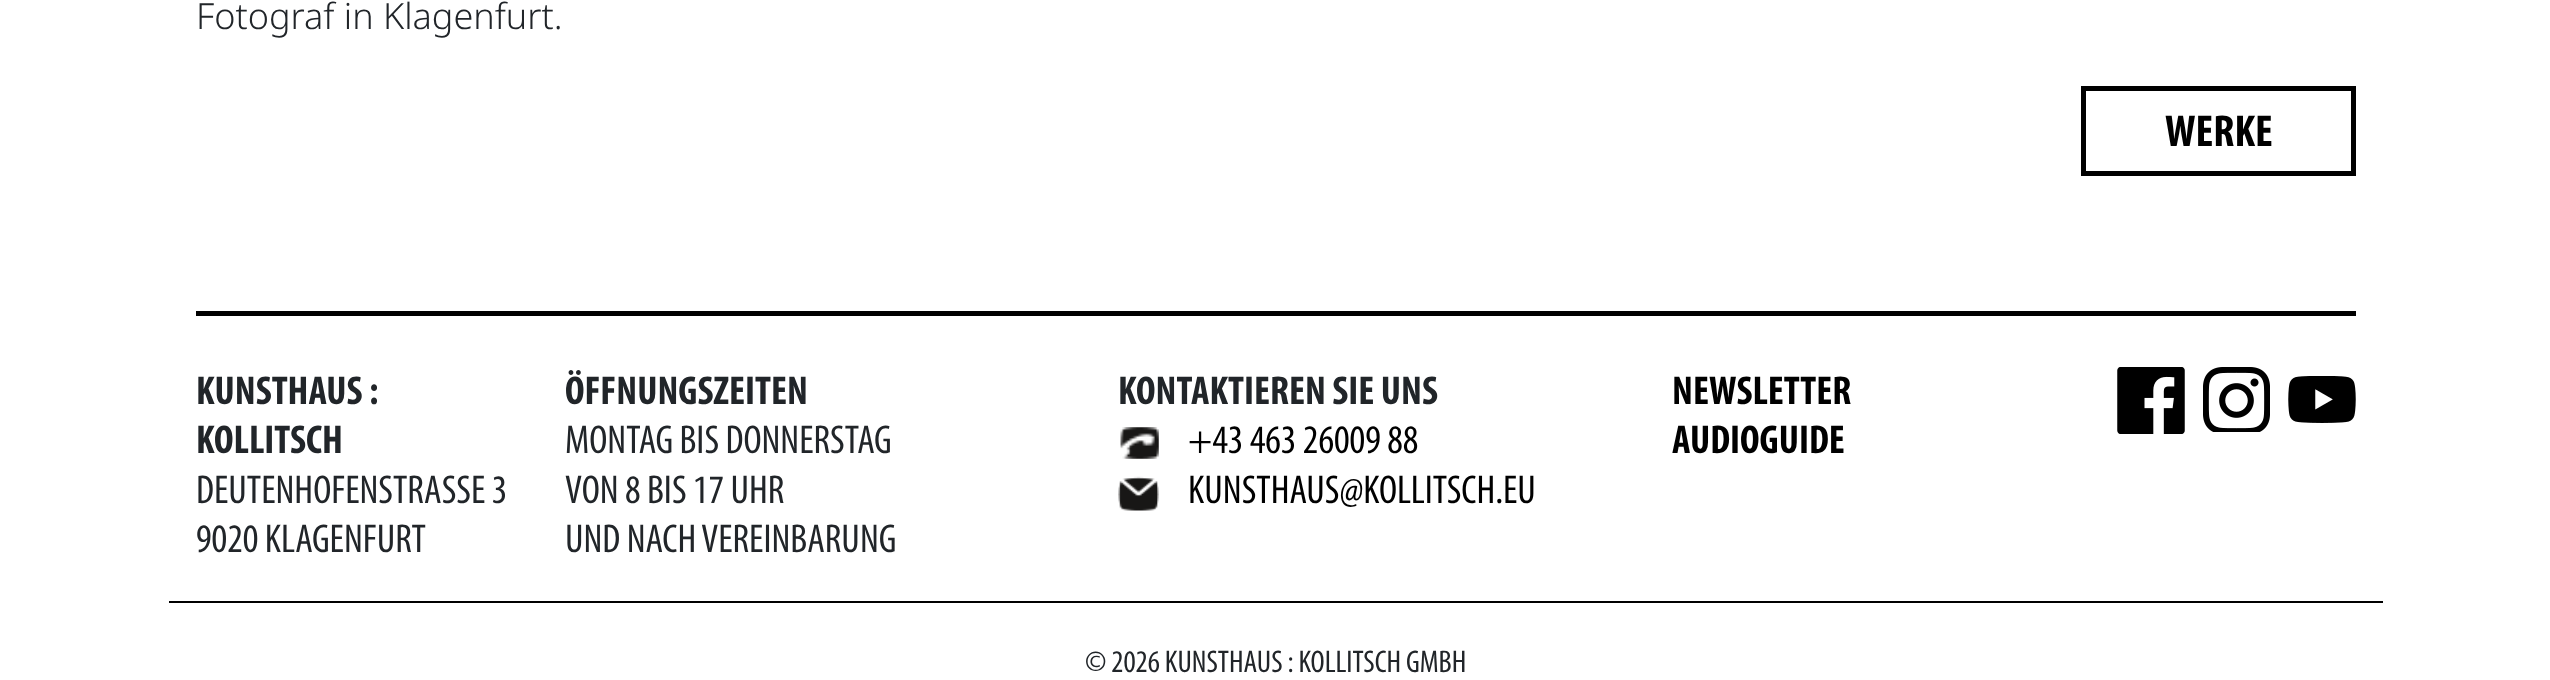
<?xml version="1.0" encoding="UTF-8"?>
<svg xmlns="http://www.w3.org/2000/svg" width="2550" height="680">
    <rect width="100%" height="100%" fill="#FFFFFF"/>
    <text x="196" y="29" font-family="Noto Sans" font-size="36" font-weight="300" fill="#212529">Fotograf in Klagenfurt.</text>
    <rect x="2083.5" y="88.5" width="270" height="85" fill="none" stroke="#000000" stroke-width="5"/>
    <text x="2165" y="146" font-family="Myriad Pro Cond" font-size="45" font-weight="700" fill="#000000">WERKE</text>
    <rect x="196" y="311" width="2160" height="5" fill="#000000"/>
    <text font-family="Myriad Pro Cond" font-size="40.5" font-weight="700" fill="#212529">
        <tspan x="196" y="404">KUNSTHAUS :</tspan>
        <tspan x="196" y="453">KOLLITSCH</tspan>
    </text>
    <text font-family="Myriad Pro Cond" font-size="40.5" fill="#212529">
        <tspan x="196" y="503">DEUTENHOFENSTRASSE 3</tspan>
        <tspan x="196" y="552">9020 KLAGENFURT</tspan>
    </text>
    <text x="565" y="404" font-family="Myriad Pro Cond" font-size="40.5" font-weight="700" fill="#212529">ÖFFNUNGSZEITEN</text>
    <text font-family="Myriad Pro Cond" font-size="40.5" fill="#212529">
        <tspan x="565" y="453">MONTAG BIS DONNERSTAG</tspan>
        <tspan x="565" y="503">VON 8 BIS 17 UHR</tspan>
        <tspan x="565" y="552">UND NACH VEREINBARUNG</tspan>
    </text>
    <text x="1118" y="404" font-family="Myriad Pro Cond" font-size="40.5" font-weight="700" fill="#212529">KONTAKTIEREN SIE UNS</text>
    <image x="1120" y="427" width="39" height="32" href="img_01.png"/>
    <text x="1188" y="453" font-family="Myriad Pro Cond" font-size="40.5" fill="#000000">+43 463 26009 88</text>
    <image x="1118" y="476" width="41" height="35" href="img_02.png"/>
    <text x="1188" y="503" font-family="Myriad Pro Cond" font-size="40.5" fill="#000000">KUNSTHAUS@KOLLITSCH.EU</text>
    <text font-family="Myriad Pro Cond" font-size="40.5" font-weight="700" fill="#000000">
        <tspan x="1672" y="404">NEWSLETTER</tspan>
        <tspan x="1672" y="453">AUDIOGUIDE</tspan>
    </text>
    <image x="2117" y="367" width="68" height="67" href="img_03.png"/>
    <image x="2203" y="367" width="67" height="65" href="img_04.png"/>
    <image x="2288" y="376" width="68" height="47" href="img_05.png"/>
    <rect x="169" y="601" width="2214" height="2" fill="#000000"/>
    <text x="1085" y="672" font-family="Myriad Pro Cond" font-size="31.5" fill="#212529">© 2026 KUNSTHAUS : KOLLITSCH GMBH</text>
</svg>
